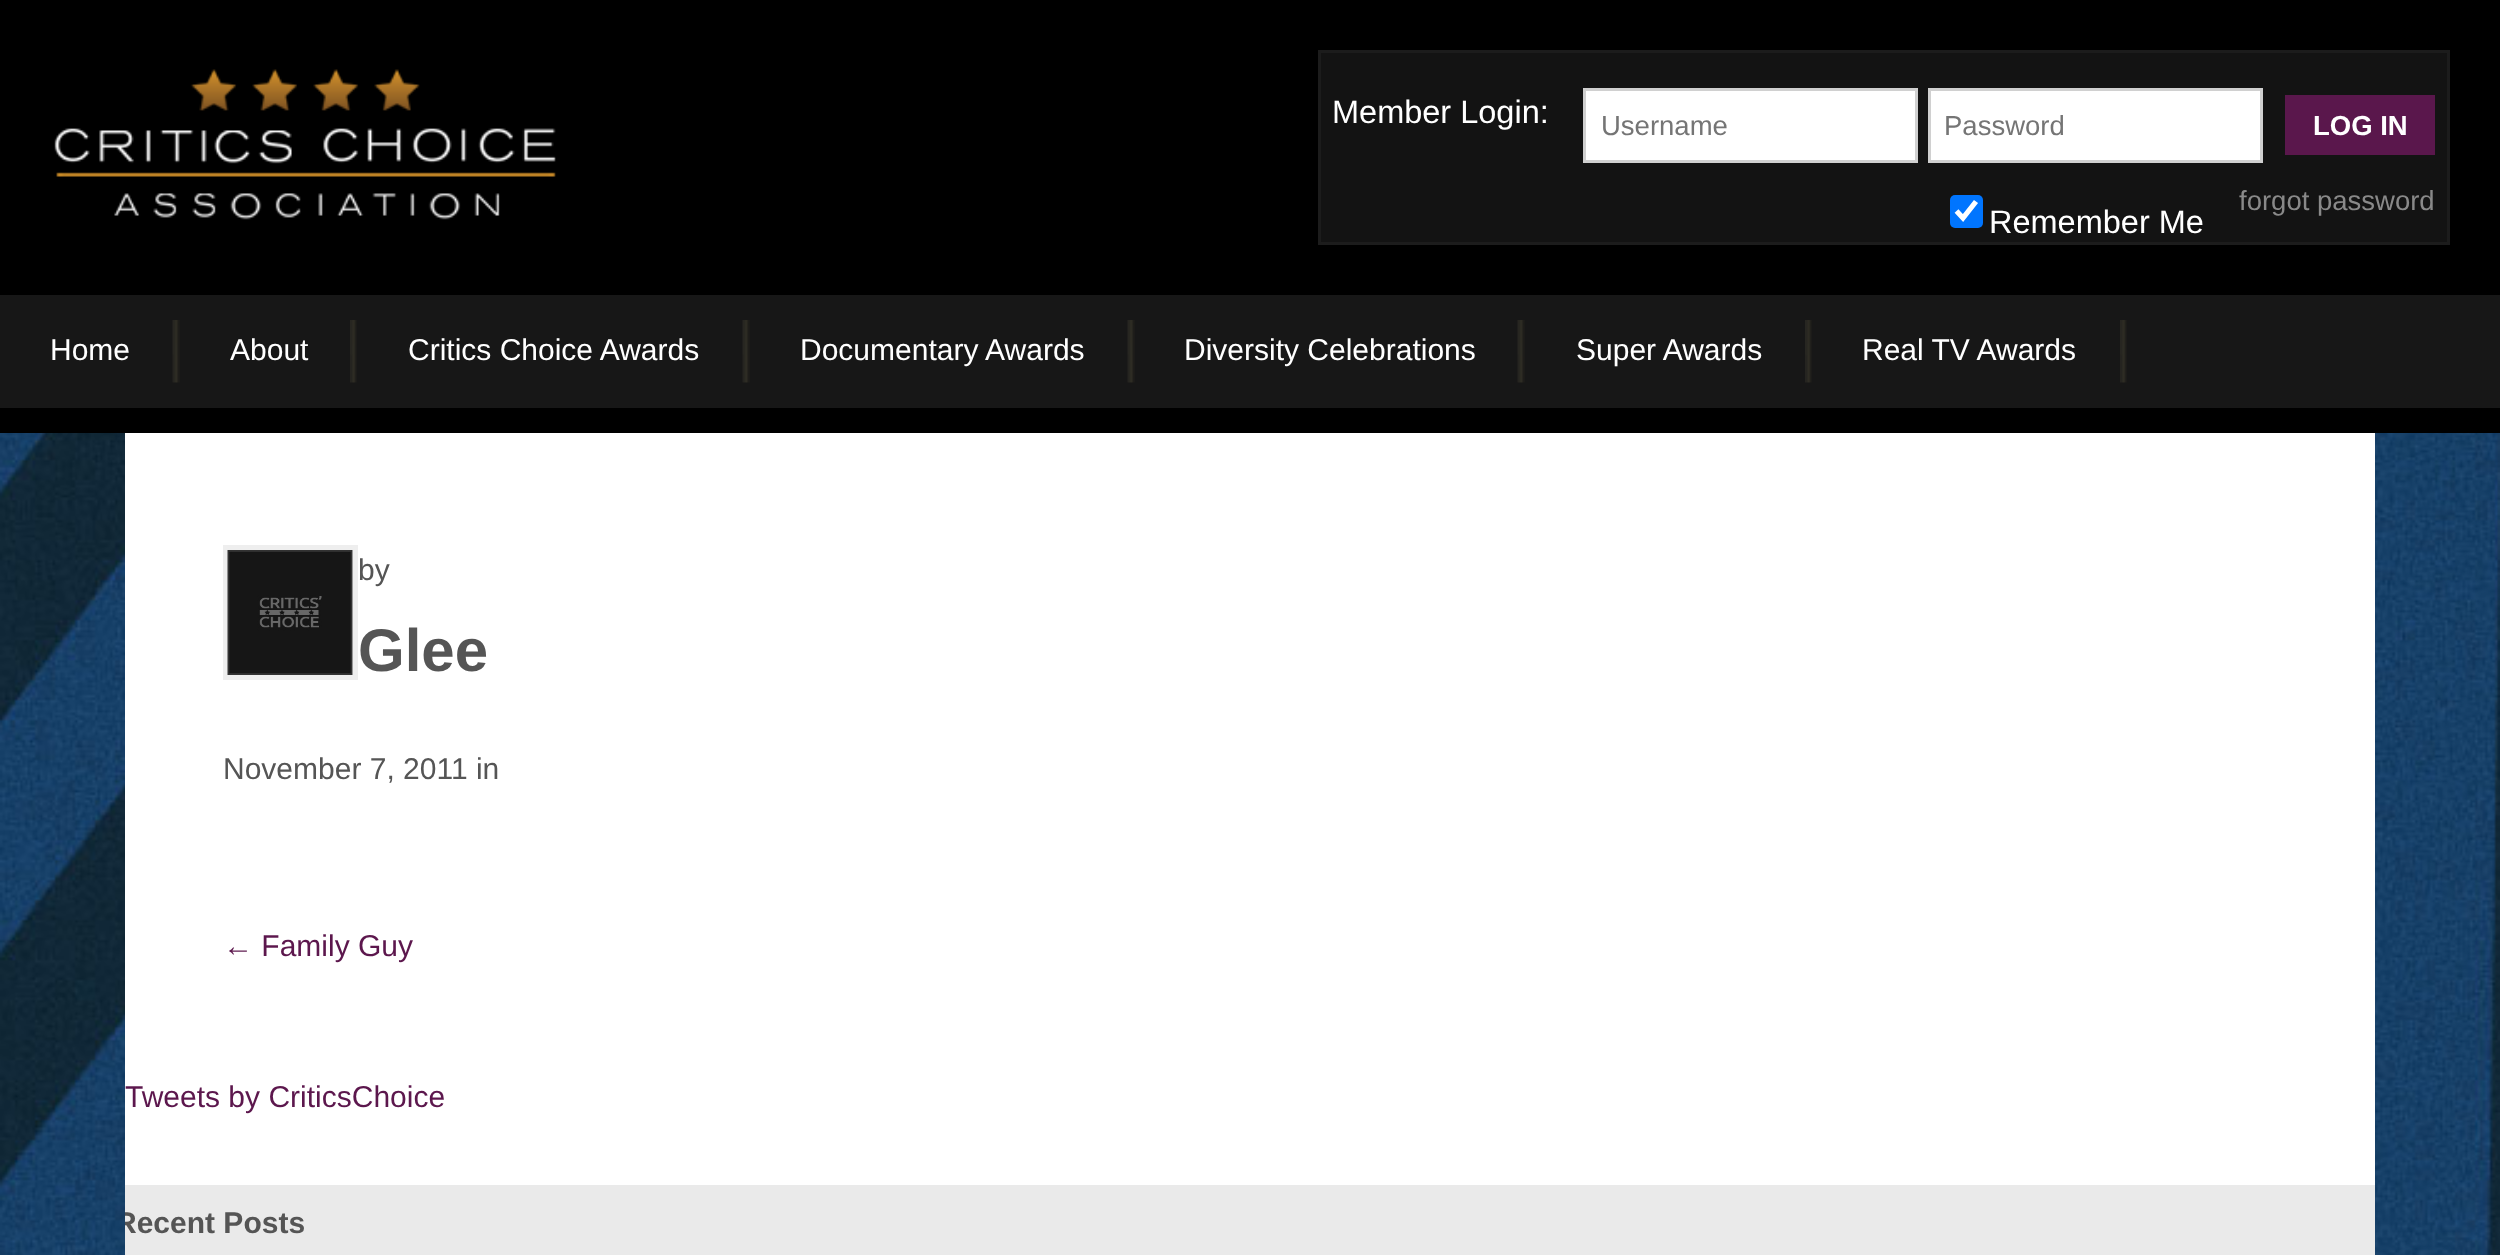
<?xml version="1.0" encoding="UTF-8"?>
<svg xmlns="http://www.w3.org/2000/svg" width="2500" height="1255">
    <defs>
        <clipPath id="clip1"><rect x="125" y="483" width="2250" height="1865"/></clipPath>
    </defs>
    <rect width="100%" height="100%" fill="#FFFFFF"/>
    <image x="0" y="433" width="2500" height="822" href="img_01.png"/>
    <rect x="0" y="0" width="2500" height="295" fill="#000000"/>
    <image x="54" y="69" width="502" height="151" href="img_02.png"/>
    <rect x="1319.5" y="51.5" width="1129" height="192" fill="#131313" stroke="#1C1C1C" stroke-width="3"/>
    <text x="1332" y="123" font-family="Liberation Sans" font-size="32.5" fill="#FFFFFF">Member Login:</text>
    <rect x="1584.5" y="89.5" width="332" height="72" fill="#FFFFFF" stroke="#D0D0D0" stroke-width="3"/>
    <text x="1601" y="135" font-family="Liberation Sans" font-size="27.5" fill="#757575">Username</text>
    <rect x="1929.5" y="89.5" width="332" height="72" fill="#FFFFFF" stroke="#D0D0D0" stroke-width="3"/>
    <text x="1944" y="135" font-family="Liberation Sans" font-size="27.5" fill="#757575">Password</text>
    <rect x="2285" y="95" width="150" height="60" fill="#5A174C"/>
    <text x="2313" y="135" font-family="Liberation Sans" font-size="27.5" font-weight="700" fill="#FFFFFF">LOG IN</text>
    <text x="2239" y="210" font-family="Liberation Sans" font-size="27.5" fill="#898989">forgot password</text>
    <rect x="1950" y="195" width="33" height="33" rx="5" fill="#0075FF"/>
    <path d="M 1956.5 211 L 1963 218 L 1976 201.5" fill="none" stroke="#FFFFFF" stroke-width="5.2"/>
    <text x="1989" y="233" font-family="Liberation Sans" font-size="32.5" fill="#FFFFFF">Remember Me</text>
    <rect x="0" y="295" width="2500" height="113" fill="#171717"/>
    <image x="172" y="320" width="8" height="63" href="img_03.png"/>
    <text x="50" y="360" font-family="Liberation Sans" font-size="30" fill="#FFFFFF">Home</text>
    <image x="350" y="320" width="7" height="63" href="img_04.png"/>
    <text x="230" y="360" font-family="Liberation Sans" font-size="30" fill="#FFFFFF">About</text>
    <image x="742" y="320" width="8" height="63" href="img_03.png"/>
    <text x="408" y="360" font-family="Liberation Sans" font-size="30" fill="#FFFFFF">Critics Choice Awards</text>
    <image x="1127" y="320" width="8" height="63" href="img_05.png"/>
    <text x="800" y="360" font-family="Liberation Sans" font-size="30" fill="#FFFFFF">Documentary Awards</text>
    <image x="1517" y="320" width="8" height="63" href="img_03.png"/>
    <text x="1184" y="360" font-family="Liberation Sans" font-size="30" fill="#FFFFFF">Diversity Celebrations</text>
    <image x="1805" y="320" width="7" height="63" href="img_06.png"/>
    <text x="1576" y="360" font-family="Liberation Sans" font-size="30" fill="#FFFFFF">Super Awards</text>
    <image x="2120" y="320" width="7" height="63" href="img_04.png"/>
    <text x="1862" y="360" font-family="Liberation Sans" font-size="30" fill="#FFFFFF">Real TV Awards</text>
    <rect x="0" y="408" width="2500" height="25" fill="#000000"/>
    <rect x="125" y="433" width="2250" height="752" fill="#FFFFFF"/>
    <rect x="225.5" y="547.5" width="130" height="130" fill="none" stroke="#EEEEEE" stroke-width="5"/>
    <image x="227" y="550" width="126" height="125" href="img_07.png"/>
    <text x="358" y="580" font-family="Liberation Sans" font-size="30" fill="#555555">by</text>
    <text x="358" y="671" font-family="Liberation Sans" font-size="60" font-weight="700" fill="#555555">Glee</text>
    <text x="223" y="779" font-family="Liberation Sans" font-size="30" fill="#555555">November 7, 2011 in</text>
    <text x="223" y="956" font-family="Liberation Sans" font-size="30" fill="#5C174D">← Family Guy</text>
    <text x="125" y="1107" font-family="Liberation Sans" font-size="30" fill="#5C174D">Tweets by CriticsChoice</text>
    <rect x="125" y="1185" width="2250" height="70" fill="#EAEAEA"/>
    <g clip-path="url(#clip1)">
        <text x="115" y="1233" font-family="Liberation Sans" font-size="30" font-weight="700" fill="#555555">Recent Posts</text>
    </g>
</svg>
